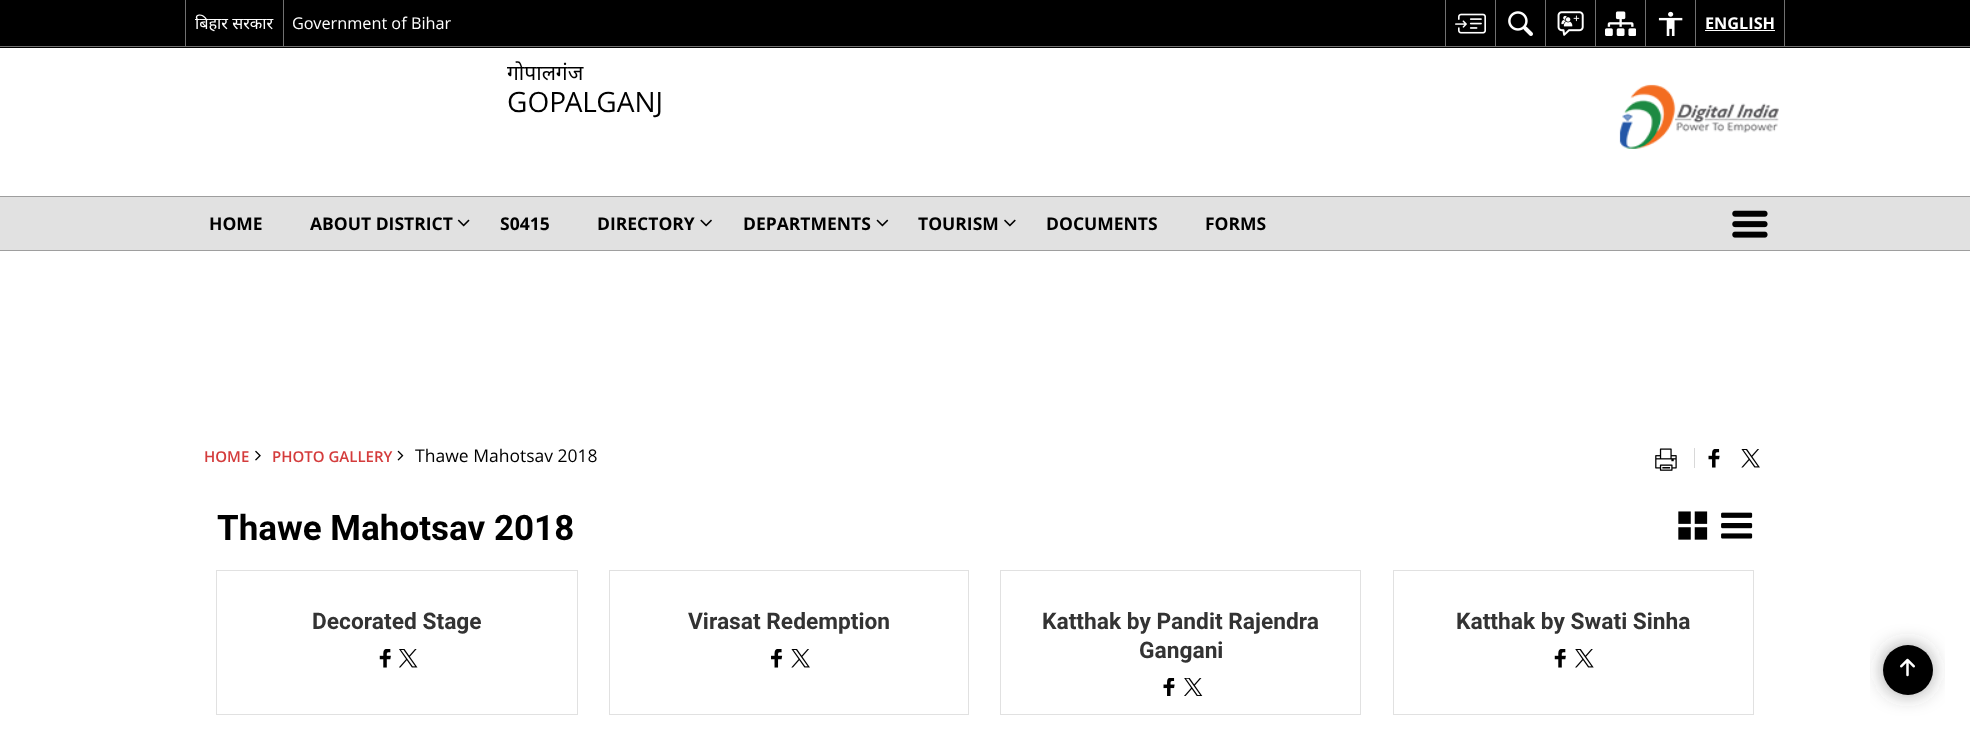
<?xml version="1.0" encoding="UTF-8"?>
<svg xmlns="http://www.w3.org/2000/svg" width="1970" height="732">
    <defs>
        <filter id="blur1" x="-50%" y="-200%" width="200%" height="500%"><feGaussianBlur stdDeviation="12"/></filter>
    </defs>
    <rect width="100%" height="100%" fill="#FFFFFF"/>
    <rect x="0" y="0" width="1970" height="48" fill="#000000"/>
    <rect x="0" y="46" width="1970" height="1" fill="#707070"/>
    <rect x="185" y="0" width="1" height="46" fill="#707070"/>
    <text x="195" y="29" font-family="Noto Sans" font-size="16.25" fill="#FFFFFF">बिहार सरकार</text>
    <rect x="283" y="0" width="1" height="46" fill="#707070"/>
    <text x="292" y="29" font-family="Open Sans" font-size="16.25" fill="#FFFFFF">Government of Bihar</text>
    <rect x="1445" y="0" width="1" height="46" fill="#707070"/>
    <image x="1455" y="13" width="31" height="21" href="img_01.png"/>
    <rect x="1495" y="0" width="1" height="46" fill="#707070"/>
    <image x="1508" y="11" width="25" height="25" href="img_02.png"/>
    <rect x="1545" y="0" width="1" height="46" fill="#707070"/>
    <image x="1557" y="11" width="27" height="25" href="img_03.png"/>
    <rect x="1595" y="0" width="1" height="46" fill="#707070"/>
    <image x="1605" y="11" width="31" height="25" href="img_04.png"/>
    <rect x="1645" y="0" width="1" height="46" fill="#707070"/>
    <image x="1658" y="11" width="25" height="25" href="img_05.png"/>
    <rect x="1784" y="0" width="1" height="46" fill="#707070"/>
    <rect x="1695" y="0" width="1" height="46" fill="#707070"/>
    <text x="1705" y="29" font-family="Open Sans" font-size="16.25" font-weight="700" fill="#FFFFFF">ENGLISH</text>
    <rect x="1705" y="30" width="70" height="1" fill="#FFFFFF"/>
    <text x="507" y="80" font-family="Noto Sans" font-size="21" fill="#000000">गोपालगंज</text>
    <text x="507" y="112" font-family="Open Sans" font-size="28" fill="#000000">GOPALGANJ</text>
    <image x="1619" y="84" width="160" height="65" href="img_06.png"/>
    <rect x="0" y="197" width="1970" height="53" fill="#E1E1E1"/>
    <rect x="0" y="196" width="1970" height="1" fill="#9E9E9E"/>
    <rect x="0" y="250" width="1970" height="1" fill="#9E9E9E"/>
    <text x="209" y="230" font-family="Open Sans" font-size="17.5" font-weight="700" fill="#000000">HOME</text>
    <text x="310" y="230" font-family="Open Sans" font-size="17.5" font-weight="700" fill="#000000">ABOUT DISTRICT</text>
    <image x="457" y="219" width="13" height="8" href="img_07.png"/>
    <text x="500" y="230" font-family="Open Sans" font-size="17.5" font-weight="700" fill="#000000">S0415</text>
    <text x="597" y="230" font-family="Open Sans" font-size="17.5" font-weight="700" fill="#000000">DIRECTORY</text>
    <image x="700" y="219" width="12" height="8" href="img_08.png"/>
    <text x="743" y="230" font-family="Open Sans" font-size="17.5" font-weight="700" fill="#000000">DEPARTMENTS</text>
    <image x="876" y="219" width="13" height="8" href="img_09.png"/>
    <text x="918" y="230" font-family="Open Sans" font-size="17.5" font-weight="700" fill="#000000">TOURISM</text>
    <image x="1004" y="219" width="12" height="8" href="img_10.png"/>
    <text x="1046" y="230" font-family="Open Sans" font-size="17.5" font-weight="700" fill="#000000">DOCUMENTS</text>
    <text x="1205" y="230" font-family="Open Sans" font-size="17.5" font-weight="700" fill="#000000">FORMS</text>
    <image x="1732" y="210" width="36" height="28" href="img_11.png"/>
    <text x="204" y="462" font-family="Open Sans" font-size="15" font-weight="600" fill="#D43C3C">HOME</text>
    <image x="255" y="450" width="6" height="11" href="img_12.png"/>
    <text x="272" y="462" font-family="Open Sans" font-size="15" font-weight="600" fill="#D43C3C">PHOTO GALLERY</text>
    <image x="397" y="450" width="7" height="11" href="img_13.png"/>
    <text x="415" y="462" font-family="Open Sans" font-size="17.5" fill="#000000">Thawe Mahotsav 2018</text>
    <image x="1655" y="448" width="22" height="23" href="img_14.png"/>
    <rect x="1694" y="448" width="1" height="20" fill="#D8D8D8"/>
    <image x="1708" y="449" width="12" height="19" href="img_15.png"/>
    <image x="1741" y="449" width="19" height="19" href="img_16.png"/>
    <text x="217" y="540" font-family="Roboto" font-size="35" font-weight="700" fill="#000000">Thawe Mahotsav 2018</text>
    <image x="1678" y="511" width="30" height="29" href="img_17.png"/>
    <image x="1721" y="512" width="32" height="27" href="img_18.png"/>
    <rect x="216.5" y="570.5" width="361" height="144" fill="none" stroke="#E1E1E1"/>
    <text x="312" y="629" font-family="Roboto" font-size="22.75" font-weight="700" fill="#333333">Decorated Stage</text>
    <image x="379" y="649" width="12" height="19" href="img_19.png"/>
    <image x="399" y="649" width="19" height="19" href="img_20.png"/>
    <rect x="609.5" y="570.5" width="359" height="144" fill="none" stroke="#E1E1E1"/>
    <text x="688" y="629" font-family="Roboto" font-size="22.75" font-weight="700" fill="#333333">Virasat Redemption</text>
    <image x="771" y="649" width="12" height="19" href="img_21.png"/>
    <image x="791" y="649" width="19" height="19" href="img_16.png"/>
    <rect x="1000.5" y="570.5" width="360" height="144" fill="none" stroke="#E1E1E1"/>
    <text x="1042" y="629" font-family="Roboto" font-size="22.75" font-weight="700" fill="#333333">Katthak by Pandit Rajendra</text>
    <text x="1139" y="658" font-family="Roboto" font-size="22.75" font-weight="700" fill="#333333">Gangani</text>
    <image x="1163" y="678" width="12" height="18" href="img_22.png"/>
    <image x="1184" y="678" width="19" height="18" href="img_23.png"/>
    <rect x="1393.5" y="570.5" width="360" height="144" fill="none" stroke="#E1E1E1"/>
    <text x="1456" y="629" font-family="Roboto" font-size="22.75" font-weight="700" fill="#333333">Katthak by Swati Sinha</text>
    <image x="1554" y="649" width="12" height="19" href="img_19.png"/>
    <image x="1575" y="649" width="19" height="19" href="img_24.png"/>
    <rect x="1889" y="651" width="37" height="38" rx="18.5" fill="#3C3C3C" filter="url(#blur1)"/>
    <circle cx="1908" cy="670" r="25" fill="#000000"/>
    <image x="1900" y="658" width="15" height="19" href="img_25.png"/>
</svg>
